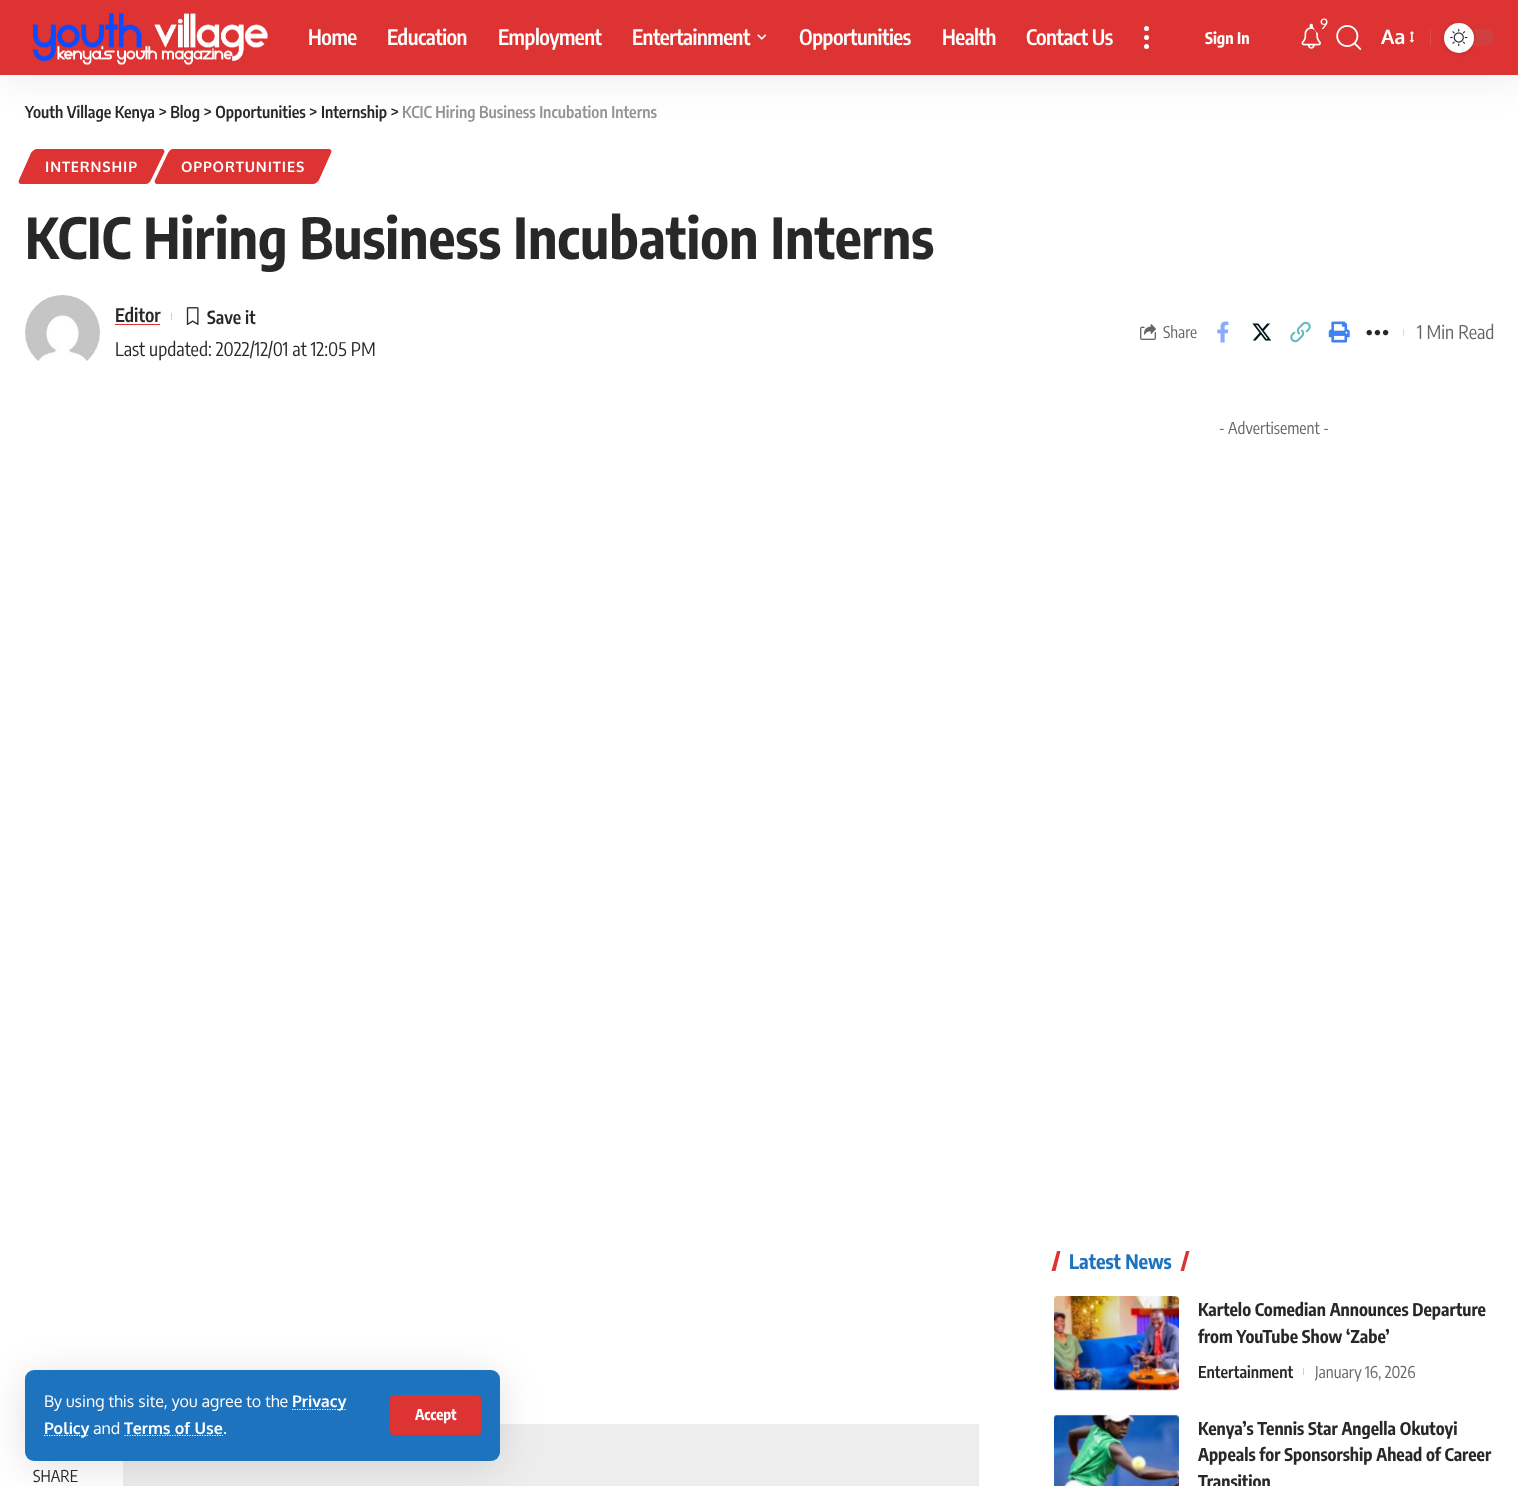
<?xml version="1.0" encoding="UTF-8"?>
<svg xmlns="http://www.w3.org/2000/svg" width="1518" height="1486">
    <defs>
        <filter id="blur1" x="-50%" y="-200%" width="200%" height="500%"><feGaussianBlur stdDeviation="19"/></filter>
        <filter id="blur2" x="-50%" y="-200%" width="200%" height="500%"><feGaussianBlur stdDeviation="2.5"/></filter>
    </defs>
    <rect width="100%" height="100%" fill="#FFFFFF"/>
    <rect x="0" y="5" width="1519" height="75" fill="#000000" fill-opacity="0.07" filter="url(#blur1)"/>
    <rect x="0" y="0" width="1518" height="75" fill="#DD3333"/>
    <image x="33" y="13" width="235" height="52" href="img_01.png"/>
    <text x="308" y="45" font-family="Encode Sans Condensed" font-size="21.25" font-weight="600" letter-spacing="-0.5" fill="#FFFFFF">Home</text>
    <text x="387" y="45" font-family="Encode Sans Condensed" font-size="21.25" font-weight="600" letter-spacing="-0.5" fill="#FFFFFF">Education</text>
    <text x="498" y="45" font-family="Encode Sans Condensed" font-size="21.25" font-weight="600" letter-spacing="-0.5" fill="#FFFFFF">Employment</text>
    <text x="632" y="45" font-family="Encode Sans Condensed" font-size="21.25" font-weight="600" letter-spacing="-0.5" fill="#FFFFFF">Entertainment</text>
    <image x="757" y="34" width="10" height="6" href="img_02.png"/>
    <text x="799" y="45" font-family="Encode Sans Condensed" font-size="21.25" font-weight="600" letter-spacing="-0.5" fill="#FFFFFF">Opportunities</text>
    <text x="942" y="45" font-family="Encode Sans Condensed" font-size="21.25" font-weight="600" letter-spacing="-0.5" fill="#FFFFFF">Health</text>
    <text x="1026" y="45" font-family="Encode Sans Condensed" font-size="21.25" font-weight="600" letter-spacing="-0.5" fill="#FFFFFF">Contact Us</text>
    <circle cx="1146.5" cy="28.5" r="2.5" fill="#FFFFFF"/>
    <circle cx="1146.5" cy="37.5" r="2.5" fill="#FFFFFF"/>
    <circle cx="1146.5" cy="46.5" r="2.5" fill="#FFFFFF"/>
    <image x="1301" y="23" width="20" height="26" href="img_03.png"/>
    <circle cx="1324" cy="24" r="11" fill="#DD3333"/>
    <text x="1320" y="29" font-family="Oxygen" font-size="14" fill="#FFFFFF">9</text>
    <rect x="1430" y="29" width="1" height="17" fill="#E04747"/>
    <rect x="1444" y="29" width="50" height="17" rx="8.5" fill="#D04040"/>
    <rect x="1444" y="24" width="30" height="30" rx="15" fill="#000000" fill-opacity="0.12" filter="url(#blur2)"/>
    <circle cx="1459" cy="38" r="15" fill="#FFFFFF"/>
    <image x="1450" y="29" width="18" height="17" href="img_04.png"/>
    <text x="1205" y="44" font-family="Encode Sans Condensed" font-size="16" font-weight="700" fill="#FFFFFF">Sign In</text>
    <image x="1336" y="25" width="26" height="25" href="img_05.png"/>
    <text x="1381" y="44" font-family="Oxygen" font-size="20" font-weight="700" fill="#FFFFFF">Aa</text>
    <image x="1409" y="31" width="5" height="12" href="img_06.png"/>
    <rect x="123" y="1424" width="856" height="62" fill="#EDEDED"/>
    <rect x="25" y="1375" width="475" height="91" rx="9" fill="#000000" fill-opacity="0.12" filter="url(#blur1)"/>
    <rect x="25" y="1370" width="475" height="91" rx="9" fill="#1E73BE"/>
    <text x="44" y="1407" font-family="Oxygen" font-size="16" fill="#FFFFFF">By using this site, you agree to the</text>
    <path d="M 292 1409.5 H 346" fill="none" stroke="#FFFFFF" stroke-width="1.2" stroke-dasharray="1.25 1.25"/>
    <text x="292" y="1407" font-family="Oxygen" font-size="16" font-weight="700" fill="#FFFFFF">Privacy</text>
    <path d="M 44 1435.5 H 89" fill="none" stroke="#FFFFFF" stroke-width="1.2" stroke-dasharray="1.25 1.25"/>
    <text x="44" y="1434" font-family="Oxygen" font-size="16" font-weight="700" fill="#FFFFFF">Policy</text>
    <text x="93" y="1434" font-family="Oxygen" font-size="16" fill="#FFFFFF">and</text>
    <path d="M 124.5 1435.5 H 223" fill="none" stroke="#FFFFFF" stroke-width="1.2" stroke-dasharray="1.25 1.25"/>
    <text x="124" y="1434" font-family="Oxygen" font-size="16" font-weight="700" fill="#FFFFFF">Terms of Use</text>
    <text x="223" y="1434" font-family="Oxygen" font-size="16" fill="#FFFFFF">.</text>
    <rect x="390" y="1395" width="91" height="40" rx="4" fill="#DD3333"/>
    <text x="415" y="1420" font-family="Encode Sans Condensed" font-size="15" font-weight="700" fill="#FFFFFF">Accept</text>
    <text x="25" y="118" font-family="Encode Sans Condensed" font-size="16.25" font-weight="600" fill="#282828">Youth Village Kenya &gt; Blog &gt; Opportunities &gt; Internship &gt;</text>
    <text x="402" y="118" font-family="Encode Sans Condensed" font-size="16.25" font-weight="600" fill="#949494">KCIC Hiring Business Incubation Interns</text>
    <path d="M 37 149 H 162 C 164 149 165 151 164 153 L 151 180 C 150 182 148 184 146 184 H 21 C 19 184 18 182 19 180 L 31 153 C 32 151 35 149 37 149 Z" fill="#DD3333"/>
    <text x="45" y="172" font-family="Oxygen" font-size="14.4" font-weight="700" letter-spacing="0.9" fill="#FFFFFF">INTERNSHIP</text>
    <path d="M 173 149 H 329 C 331 149 332 151 331 153 L 319 180 C 318 182 315 184 313 184 H 157 C 155 184 154 182 155 180 L 168 153 C 169 151 171 149 173 149 Z" fill="#DD3333"/>
    <text x="181" y="172" font-family="Oxygen" font-size="14.4" font-weight="700" letter-spacing="0.9" fill="#FFFFFF">OPPORTUNITIES</text>
    <text x="25" y="259" font-family="Encode Sans Condensed" font-size="56.25" font-weight="700" fill="#282828">KCIC Hiring Business Incubation Interns</text>
    <image x="25" y="295" width="75" height="66" href="img_07.png"/>
    <text x="115" y="322" font-family="Encode Sans Condensed" font-size="18.75" font-weight="600" fill="#282828">Editor</text>
    <rect x="115" y="324" width="45" height="1" fill="#DD3333"/>
    <rect x="171" y="313" width="1" height="7" fill="#D1D1D1"/>
    <image x="186" y="307" width="13" height="18" href="img_08.png"/>
    <text x="207" y="324" font-family="Encode Sans Condensed" font-size="18" font-weight="600" fill="#282828">Save it</text>
    <text x="115" y="356" font-family="Encode Sans Condensed" font-size="18.75" fill="#282828">Last updated: 2022/12/01 at 12:05 PM</text>
    <image x="1140" y="324" width="16" height="16" href="img_09.png"/>
    <text x="1163" y="338" font-family="Encode Sans Condensed" font-size="16" fill="#666666">Share</text>
    <image x="1217" y="321" width="12" height="22" href="img_10.png"/>
    <image x="1252" y="323" width="20" height="18" href="img_11.png"/>
    <image x="1290" y="321" width="21" height="22" href="img_12.png"/>
    <image x="1328" y="321" width="22" height="22" href="img_13.png"/>
    <image x="1366" y="329" width="23" height="7" href="img_14.png"/>
    <rect x="1403" y="329" width="1" height="7" fill="#D9D9D9"/>
    <text x="1417" y="339" font-family="Encode Sans Condensed" font-size="18.75" fill="#666666">1 Min Read</text>
    <text x="33" y="1482" font-family="Encode Sans Condensed" font-size="16.25" fill="#282828">SHARE</text>
    <text x="1219" y="434" font-family="Encode Sans Condensed" font-size="16.25" fill="#666666">- Advertisement -</text>
    <path d="M 1186 1251 H 1189.5 L 1184 1271 H 1180.5 Z" fill="#DD3333"/>
    <path d="M 1057 1251 H 1060.5 L 1055.5 1271 H 1051.5 Z" fill="#DD3333"/>
    <text x="1069" y="1269" font-family="Encode Sans Condensed" font-size="20" font-weight="700" fill="#1E73BE">Latest News</text>
    <image x="1054" y="1296" width="125" height="95" href="img_15.png"/>
    <text font-family="Encode Sans Condensed" font-size="17.5" font-weight="700" fill="#282828">
        <tspan x="1198" y="1316">Kartelo Comedian Announces Departure</tspan>
        <tspan x="1198" y="1343">from YouTube Show ‘Zabe’</tspan>
    </text>
    <text x="1198" y="1378" font-family="Encode Sans Condensed" font-size="16.25" font-weight="600" fill="#282828">Entertainment</text>
    <rect x="1303" y="1368" width="1" height="7" fill="#D1D1D1"/>
    <text x="1315" y="1378" font-family="Encode Sans Condensed" font-size="16.25" fill="#666666">January 16, 2026</text>
    <image x="1054" y="1414" width="125" height="72" href="img_16.png"/>
    <text font-family="Encode Sans Condensed" font-size="17.5" font-weight="700" fill="#282828">
        <tspan x="1198" y="1435">Kenya’s Tennis Star Angella Okutoyi</tspan>
        <tspan x="1198" y="1461">Appeals for Sponsorship Ahead of Career</tspan>
        <tspan x="1198" y="1488">Transition</tspan>
    </text>
</svg>
